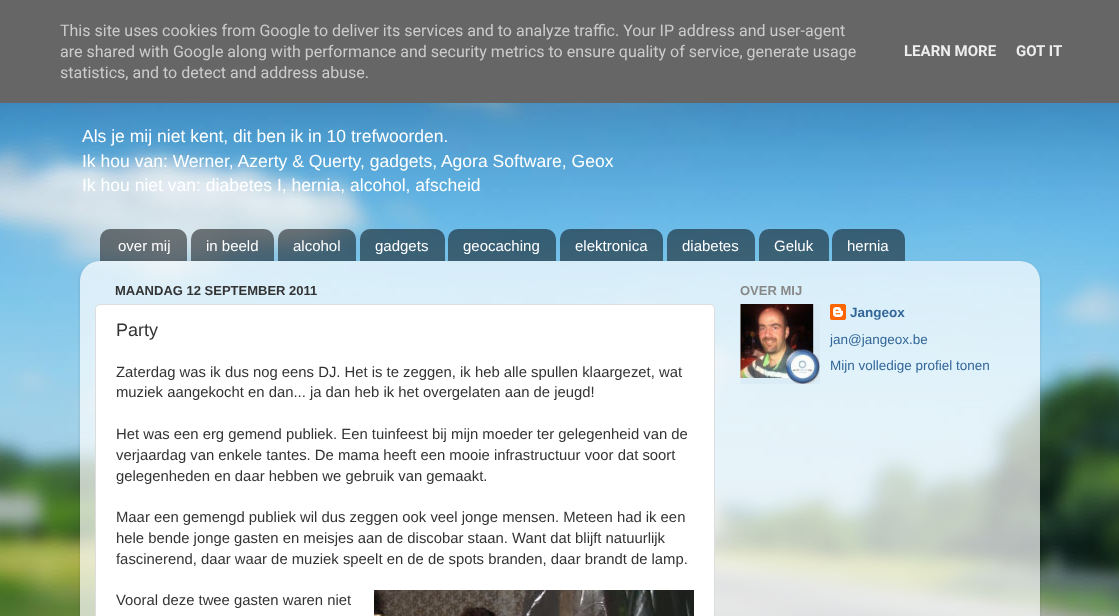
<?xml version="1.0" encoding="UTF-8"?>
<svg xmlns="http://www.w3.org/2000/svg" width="1119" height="616">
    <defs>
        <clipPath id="clip1"><path d="M 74 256 H 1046 V 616 H 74 Z M 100 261 H 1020 C 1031 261 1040 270 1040 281 V 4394 H 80 V 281 C 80 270 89 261 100 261 Z" clip-rule="evenodd"/></clipPath>
        <filter id="blur1" x="-50%" y="-200%" width="200%" height="500%"><feGaussianBlur stdDeviation="1.5"/></filter>
    </defs>
    <rect width="100%" height="100%" fill="#FFFFFF"/>
    <rect x="0" y="0" width="1119" height="103" fill="#666666"/>
    <text font-family="Roboto" font-size="16" fill="#CCCCCC">
        <tspan x="60" y="36">This site uses cookies from Google to deliver its services and to analyze traffic. Your IP address and user-agent</tspan>
        <tspan x="60" y="57">are shared with Google along with performance and security metrics to ensure quality of service, generate usage</tspan>
        <tspan x="60" y="78">statistics, and to detect and address abuse.</tspan>
    </text>
    <text x="904" y="56" font-family="Roboto" font-size="15" font-weight="700" fill="#EEEEEE">LEARN MORE</text>
    <text x="1016" y="56" font-family="Roboto" font-size="15" font-weight="700" fill="#EEEEEE">GOT IT</text>
    <image x="0" y="103" width="1119" height="513" href="img_01.png"/>
    <text font-family="Liberation Sans" font-size="17.55" fill="#FFFFFF">
        <tspan x="82" y="142">Als je mij niet kent, dit ben ik in 10 trefwoorden.</tspan>
        <tspan x="82" y="167">Ik hou van: Werner, Azerty &amp; Querty, gadgets, Agora Software, Geox</tspan>
        <tspan x="82" y="191">Ik hou niet van: diabetes I, hernia, alcohol, afscheid</tspan>
    </text>
    <image x="100" y="229" width="87" height="32" href="img_02.png"/>
    <text x="118" y="251" font-family="Liberation Sans" font-size="15" fill="#FFFFFF">over mij</text>
    <image x="191" y="229" width="83" height="32" href="img_03.png"/>
    <text x="206" y="251" font-family="Liberation Sans" font-size="15" fill="#FFFFFF">in beeld</text>
    <image x="278" y="229" width="78" height="32" href="img_04.png"/>
    <text x="293" y="251" font-family="Liberation Sans" font-size="15" fill="#FFFFFF">alcohol</text>
    <image x="360" y="229" width="85" height="32" href="img_05.png"/>
    <text x="375" y="251" font-family="Liberation Sans" font-size="15" fill="#FFFFFF">gadgets</text>
    <image x="448" y="229" width="108" height="32" href="img_06.png"/>
    <text x="463" y="251" font-family="Liberation Sans" font-size="15" fill="#FFFFFF">geocaching</text>
    <image x="560" y="229" width="103" height="32" href="img_07.png"/>
    <text x="575" y="251" font-family="Liberation Sans" font-size="15" fill="#FFFFFF">elektronica</text>
    <image x="667" y="229" width="88" height="32" href="img_08.png"/>
    <text x="682" y="251" font-family="Liberation Sans" font-size="15" fill="#FFFFFF">diabetes</text>
    <image x="759" y="229" width="70" height="32" href="img_09.png"/>
    <text x="774" y="251" font-family="Liberation Sans" font-size="15" fill="#FFFFFF">Geluk</text>
    <image x="832" y="229" width="73" height="32" href="img_10.png"/>
    <text x="847" y="251" font-family="Liberation Sans" font-size="15" fill="#FFFFFF">hernia</text>
    <g clip-path="url(#clip1)">
        <rect x="80" y="262" width="960" height="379" rx="20" fill="#000000" fill-opacity="0.15" filter="url(#blur1)"/>
    </g>
    <image x="80" y="261" width="960" height="355" href="img_11.png"/>
    <text x="115" y="295" font-family="Liberation Sans" font-size="13" font-weight="700" fill="#333333">MAANDAG 12 SEPTEMBER 2011</text>
    <rect x="95.5" y="304.5" width="619" height="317" rx="4.5" fill="#FFFFFF" stroke="#DDDDDD"/>
    <text x="116" y="336" font-family="Liberation Sans" font-size="18" fill="#333333">Party</text>
    <text font-family="Liberation Sans" font-size="14.85" fill="#333333">
        <tspan x="116" y="377">Zaterdag was ik dus nog eens DJ. Het is te zeggen, ik heb alle spullen klaargezet, wat</tspan>
        <tspan x="116" y="397">muziek aangekocht en dan... ja dan heb ik het overgelaten aan de jeugd!</tspan>
    </text>
    <text font-family="Liberation Sans" font-size="14.85" fill="#333333">
        <tspan x="116" y="439">Het was een erg gemend publiek. Een tuinfeest bij mijn moeder ter gelegenheid van de</tspan>
        <tspan x="116" y="460">verjaardag van enkele tantes. De mama heeft een mooie infrastructuur voor dat soort</tspan>
        <tspan x="116" y="481">gelegenheden en daar hebben we gebruik van gemaakt.</tspan>
    </text>
    <text font-family="Liberation Sans" font-size="14.85" fill="#333333">
        <tspan x="116" y="522">Maar een gemengd publiek wil dus zeggen ook veel jonge mensen. Meteen had ik een</tspan>
        <tspan x="116" y="543">hele bende jonge gasten en meisjes aan de discobar staan. Want dat blijft natuurlijk</tspan>
        <tspan x="116" y="564">fascinerend, daar waar de muziek speelt en de de spots branden, daar brandt de lamp.</tspan>
    </text>
    <text x="116" y="605" font-family="Liberation Sans" font-size="14.85" fill="#333333">Vooral deze twee gasten waren niet</text>
    <image x="374" y="590" width="320" height="26" href="img_12.png"/>
    <text x="740" y="295" font-family="Liberation Sans" font-size="13" font-weight="700" fill="#888888">OVER MIJ</text>
    <image x="740" y="304" width="80" height="80" href="img_13.png"/>
    <image x="830" y="304" width="16" height="16" href="img_14.png"/>
    <text x="850" y="317" font-family="Liberation Sans" font-size="13.5" font-weight="700" fill="#336699">Jangeox</text>
    <text font-family="Liberation Sans" font-size="13.5" fill="#336699">
        <tspan x="830" y="344">jan@jangeox.be</tspan>
        <tspan x="830" y="370">Mijn volledige profiel tonen</tspan>
    </text>
</svg>
